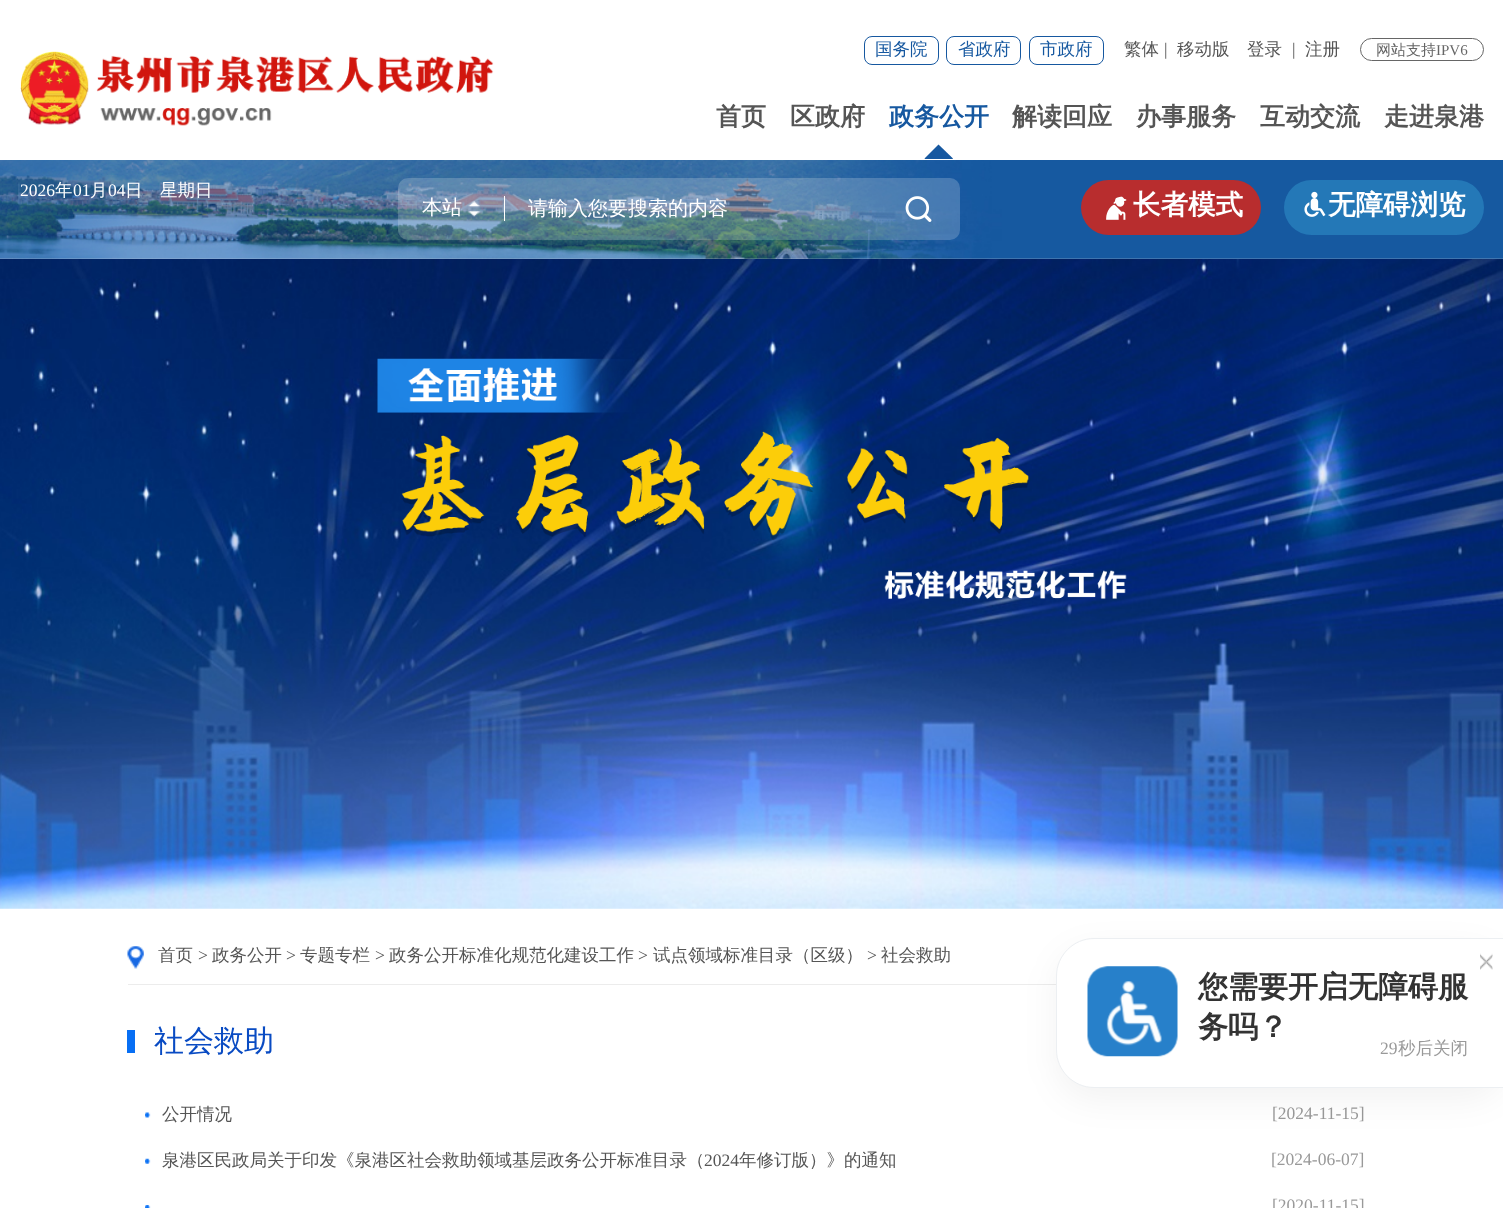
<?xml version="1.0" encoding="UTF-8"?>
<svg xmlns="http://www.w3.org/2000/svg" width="1503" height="1208">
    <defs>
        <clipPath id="clip1"><rect x="889" y="74" width="100" height="85"/></clipPath>
        <filter id="blur1" x="-50%" y="-200%" width="200%" height="500%"><feGaussianBlur stdDeviation="17"/></filter>
    </defs>
    <rect width="100%" height="100%" fill="#FFFFFF"/>
    <image x="20" y="51" width="474" height="75" href="img_01.png"/>
    <rect x="864.5" y="36.5" width="74" height="28" rx="7.5" fill="none" stroke="#1658A0"/>
    <text x="875" y="55" font-family="WenQuanYi Zen Hei" font-size="17.5" font-weight="500" fill="#1658A0">国务院</text>
    <rect x="946.5" y="36.5" width="74" height="28" rx="7.5" fill="none" stroke="#1658A0"/>
    <text x="958" y="55" font-family="WenQuanYi Zen Hei" font-size="17.5" font-weight="500" fill="#1658A0">省政府</text>
    <rect x="1029.5" y="36.5" width="74" height="28" rx="7.5" fill="none" stroke="#1658A0"/>
    <text x="1040" y="55" font-family="WenQuanYi Zen Hei" font-size="17.5" font-weight="500" fill="#1658A0">市政府</text>
    <text x="1124" y="55" font-family="WenQuanYi Zen Hei" font-size="17.5" font-weight="500" fill="#555555">繁体</text>
    <text x="1164" y="55" font-family="Liberation Serif" font-size="17.5" fill="#555555">|</text>
    <text x="1177" y="55" font-family="WenQuanYi Zen Hei" font-size="17.5" font-weight="500" fill="#555555">移动版</text>
    <text x="1247" y="55" font-family="WenQuanYi Zen Hei" font-size="17.5" font-weight="500" fill="#555555">登录</text>
    <text x="1292" y="55" font-family="Liberation Serif" font-size="17.5" fill="#555555">|</text>
    <text x="1305" y="55" font-family="WenQuanYi Zen Hei" font-size="17.5" font-weight="500" fill="#555555">注册</text>
    <rect x="1360.5" y="38.5" width="123" height="22" rx="11" fill="none" stroke="#666666"/>
    <text x="1376" y="55" font-family="WenQuanYi Zen Hei" font-size="15" font-weight="500" fill="#666666">网站支持</text>
    <text x="1436" y="55" font-family="Liberation Serif" font-size="15" fill="#666666">IPV6</text>
    <text x="716" y="125" font-family="WenQuanYi Zen Hei" font-size="25" font-weight="700" fill="#555555">首页</text>
    <text x="790" y="125" font-family="WenQuanYi Zen Hei" font-size="25" font-weight="700" fill="#555555">区政府</text>
    <text x="889" y="125" font-family="WenQuanYi Zen Hei" font-size="25" font-weight="700" fill="#1658A0">政务公开</text>
    <g clip-path="url(#clip1)">
        <path d="M 938.5 144.5 L 953 158.5 L 938.5 173 L 924.5 158.5 Z" fill="#1658A0"/>
    </g>
    <text x="1012" y="125" font-family="WenQuanYi Zen Hei" font-size="25" font-weight="700" fill="#555555">解读回应</text>
    <text x="1136" y="125" font-family="WenQuanYi Zen Hei" font-size="25" font-weight="700" fill="#555555">办事服务</text>
    <text x="1260" y="125" font-family="WenQuanYi Zen Hei" font-size="25" font-weight="700" fill="#555555">互动交流</text>
    <text x="1384" y="125" font-family="WenQuanYi Zen Hei" font-size="25" font-weight="700" fill="#555555">走进泉港</text>
    <image x="0" y="258" width="1503" height="651" href="img_07.png"/>
    <image x="0" y="160" width="1503" height="99" href="img_02.png"/>
    <text x="20" y="196" font-family="Liberation Serif" font-size="17.5" fill="#FFFFFF">2026</text>
    <text x="55" y="196" font-family="WenQuanYi Zen Hei" font-size="17.5" font-weight="500" fill="#FFFFFF">年</text>
    <text x="73" y="196" font-family="Liberation Serif" font-size="17.5" fill="#FFFFFF">01</text>
    <text x="90" y="196" font-family="WenQuanYi Zen Hei" font-size="17.5" font-weight="500" fill="#FFFFFF">月</text>
    <text x="108" y="196" font-family="Liberation Serif" font-size="17.5" fill="#FFFFFF">04</text>
    <text x="125" y="196" font-family="WenQuanYi Zen Hei" font-size="17.5" font-weight="500" fill="#FFFFFF">日</text>
    <text x="160" y="196" font-family="WenQuanYi Zen Hei" font-size="17.5" font-weight="500" fill="#FFFFFF">星期日</text>
    <rect x="398" y="178" width="562" height="62" rx="10" fill="#FFFFFF" fill-opacity="0.2"/>
    <text x="422" y="214" font-family="WenQuanYi Zen Hei" font-size="20" font-weight="500" fill="#FFFFFF">本站</text>
    <image x="468" y="201" width="12" height="16" href="img_03.png"/>
    <rect x="504" y="196" width="1" height="25" fill="#FFFFFF"/>
    <text x="528" y="215" font-family="WenQuanYi Zen Hei" font-size="20" font-weight="500" fill="#FFFFFF">请输入您要搜索的内容</text>
    <image x="905" y="196" width="27" height="26" href="img_04.png"/>
    <rect x="1081" y="180" width="180" height="55" rx="27.5" fill="#B82D2E"/>
    <image x="1106" y="196" width="21" height="24" href="img_05.png"/>
    <text x="1133" y="214" font-family="WenQuanYi Zen Hei" font-size="27.5" font-weight="700" fill="#FFFFFF">长者模式</text>
    <rect x="1284" y="180" width="200" height="55" rx="27.5" fill="#2478B7"/>
    <image x="1304" y="191" width="22" height="26" href="img_06.png"/>
    <text x="1328" y="214" font-family="WenQuanYi Zen Hei" font-size="27.5" font-weight="700" fill="#FFFFFF">无障碍浏览</text>
    <image x="377" y="358" width="750" height="241" href="img_08.png"/>
    <image x="127" y="946" width="17" height="23" href="img_09.png"/>
    <rect x="128" y="984" width="928" height="1" fill="#ECECEC"/>
    <text x="158" y="961" font-family="WenQuanYi Zen Hei" font-size="17.5" font-weight="500" fill="#555555">首页</text>
    <text x="198" y="961" font-family="Liberation Serif" font-size="17.5" fill="#555555">&gt;</text>
    <text x="212" y="961" font-family="WenQuanYi Zen Hei" font-size="17.5" font-weight="500" fill="#555555">政务公开</text>
    <text x="286" y="961" font-family="Liberation Serif" font-size="17.5" fill="#555555">&gt;</text>
    <text x="300" y="961" font-family="WenQuanYi Zen Hei" font-size="17.5" font-weight="500" fill="#555555">专题专栏</text>
    <text x="375" y="961" font-family="Liberation Serif" font-size="17.5" fill="#555555">&gt;</text>
    <text x="389" y="961" font-family="WenQuanYi Zen Hei" font-size="17.5" font-weight="500" fill="#555555">政务公开标准化规范化建设工作</text>
    <text x="638" y="961" font-family="Liberation Serif" font-size="17.5" fill="#555555">&gt;</text>
    <text x="653" y="961" font-family="WenQuanYi Zen Hei" font-size="17.5" font-weight="500" fill="#555555">试点领域标准目录（区级）</text>
    <text x="867" y="961" font-family="Liberation Serif" font-size="17.5" fill="#555555">&gt;</text>
    <text x="881" y="961" font-family="WenQuanYi Zen Hei" font-size="17.5" font-weight="500" fill="#555555">社会救助</text>
    <rect x="127" y="1030" width="8" height="23" fill="#076FF4"/>
    <text x="154" y="1051" font-family="WenQuanYi Zen Hei" font-size="30" font-weight="500" fill="#094BC3">社会救助</text>
    <image x="145" y="1112" width="6" height="6" href="img_10.png"/>
    <text x="162" y="1120" font-family="WenQuanYi Zen Hei" font-size="17.5" font-weight="500" fill="#555555">公开情况</text>
    <text x="1272" y="1119" font-family="Liberation Serif" font-size="17.5" fill="#999999">[2024-11-15]</text>
    <image x="145" y="1158" width="6" height="6" href="img_11.png"/>
    <text x="162" y="1166" font-family="WenQuanYi Zen Hei" font-size="17.5" font-weight="500" fill="#555555">泉港区民政局关于印发《泉港区社会救助领域基层政务公开标准目录（</text>
    <text x="704" y="1166" font-family="Liberation Serif" font-size="17.5" fill="#555555">2024</text>
    <text x="739" y="1166" font-family="WenQuanYi Zen Hei" font-size="17.5" font-weight="500" fill="#555555">年修订版）》的通知</text>
    <text x="1271" y="1165" font-family="Liberation Serif" font-size="17.5" fill="#999999">[2024-06-07]</text>
    <image x="145" y="1205" width="6" height="3" href="img_12.png"/>
    <text x="1272" y="1211" font-family="Liberation Serif" font-size="17.5" fill="#999999">[2020-11-15]</text>
    <rect x="1056" y="950" width="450" height="150" rx="38" fill="#040404" fill-opacity="0.05" filter="url(#blur1)"/>
    <path d="M 1094 938.5 H 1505.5 V 1087.5 H 1094 C 1073.5 1087.5 1056.5 1070.5 1056.5 1050 V 976 C 1056.5 955.5 1073.5 938.5 1094 938.5 Z" fill="#FFFFFF" stroke="#ECEFF2"/>
    <image x="1480" y="953" width="13" height="17" href="img_13.png"/>
    <image x="1087" y="966" width="91" height="91" href="img_14.png"/>
    <text font-family="WenQuanYi Zen Hei" font-size="30" font-weight="700" fill="#333333">
        <tspan x="1198" y="997">您需要开启无障碍服</tspan>
        <tspan x="1198" y="1037">务吗？</tspan>
    </text>
    <text x="1380" y="1054" font-family="Liberation Serif" font-size="17.5" fill="#999999">29</text>
    <text x="1398" y="1054" font-family="WenQuanYi Zen Hei" font-size="17.5" font-weight="500" fill="#999999">秒后关闭</text>
</svg>
